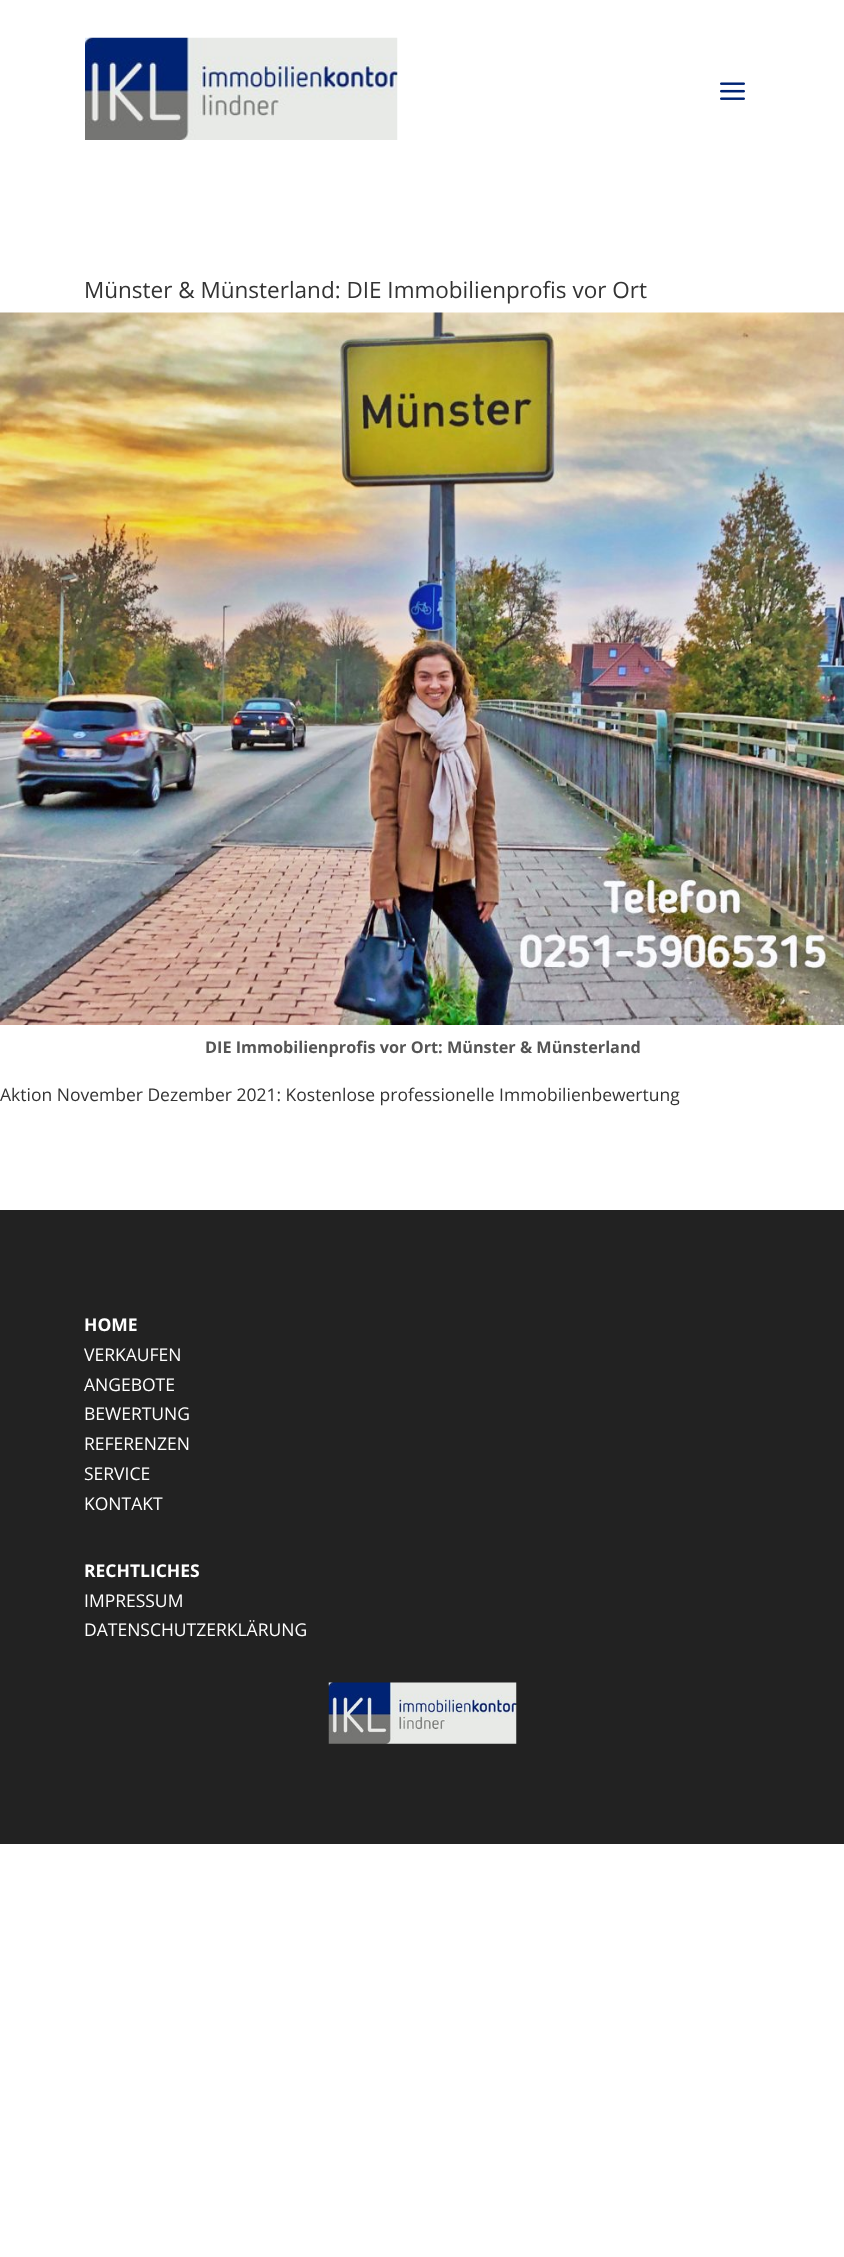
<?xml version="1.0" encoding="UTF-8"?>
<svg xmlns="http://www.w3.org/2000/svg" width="844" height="2257">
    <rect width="100%" height="100%" fill="#FFFFFF"/>
    <image x="85" y="37" width="313" height="103" href="img_01.png"/>
    <image x="720" y="82" width="25" height="18" href="img_02.png"/>
    <text x="84" y="298" font-family="Open Sans" font-size="22.5" fill="#333333">Münster &amp; Münsterland: DIE Immobilienprofis vor Ort</text>
    <image x="0" y="312" width="844" height="713" href="img_03.png"/>
    <text x="205" y="1053" font-family="Open Sans" font-size="16.25" font-weight="700" fill="#555555">DIE Immobilienprofis vor Ort: Münster &amp; Münsterland</text>
    <text x="0" y="1101" font-family="Open Sans" font-size="17.5" fill="#333333">Aktion November Dezember 2021: Kostenlose professionelle Immobilienbewertung</text>
    <rect x="0" y="1210" width="844" height="634" fill="#222222"/>
    <text x="84" y="1331" font-family="Open Sans" font-size="17.5" font-weight="700" fill="#FFFFFF">HOME</text>
    <text font-family="Open Sans" font-size="17.5" fill="#FFFFFF">
        <tspan x="84" y="1361">VERKAUFEN</tspan>
        <tspan x="84" y="1391">ANGEBOTE</tspan>
        <tspan x="84" y="1420">BEWERTUNG</tspan>
        <tspan x="84" y="1450">REFERENZEN</tspan>
        <tspan x="84" y="1480">SERVICE</tspan>
        <tspan x="84" y="1510">KONTAKT</tspan>
    </text>
    <text x="84" y="1577" font-family="Open Sans" font-size="17.5" font-weight="700" fill="#FFFFFF">RECHTLICHES</text>
    <text font-family="Open Sans" font-size="17.5" fill="#FFFFFF">
        <tspan x="84" y="1607">IMPRESSUM</tspan>
        <tspan x="84" y="1636">DATENSCHUTZERKLÄRUNG</tspan>
    </text>
    <image x="328" y="1682" width="189" height="62" href="img_04.png"/>
</svg>
